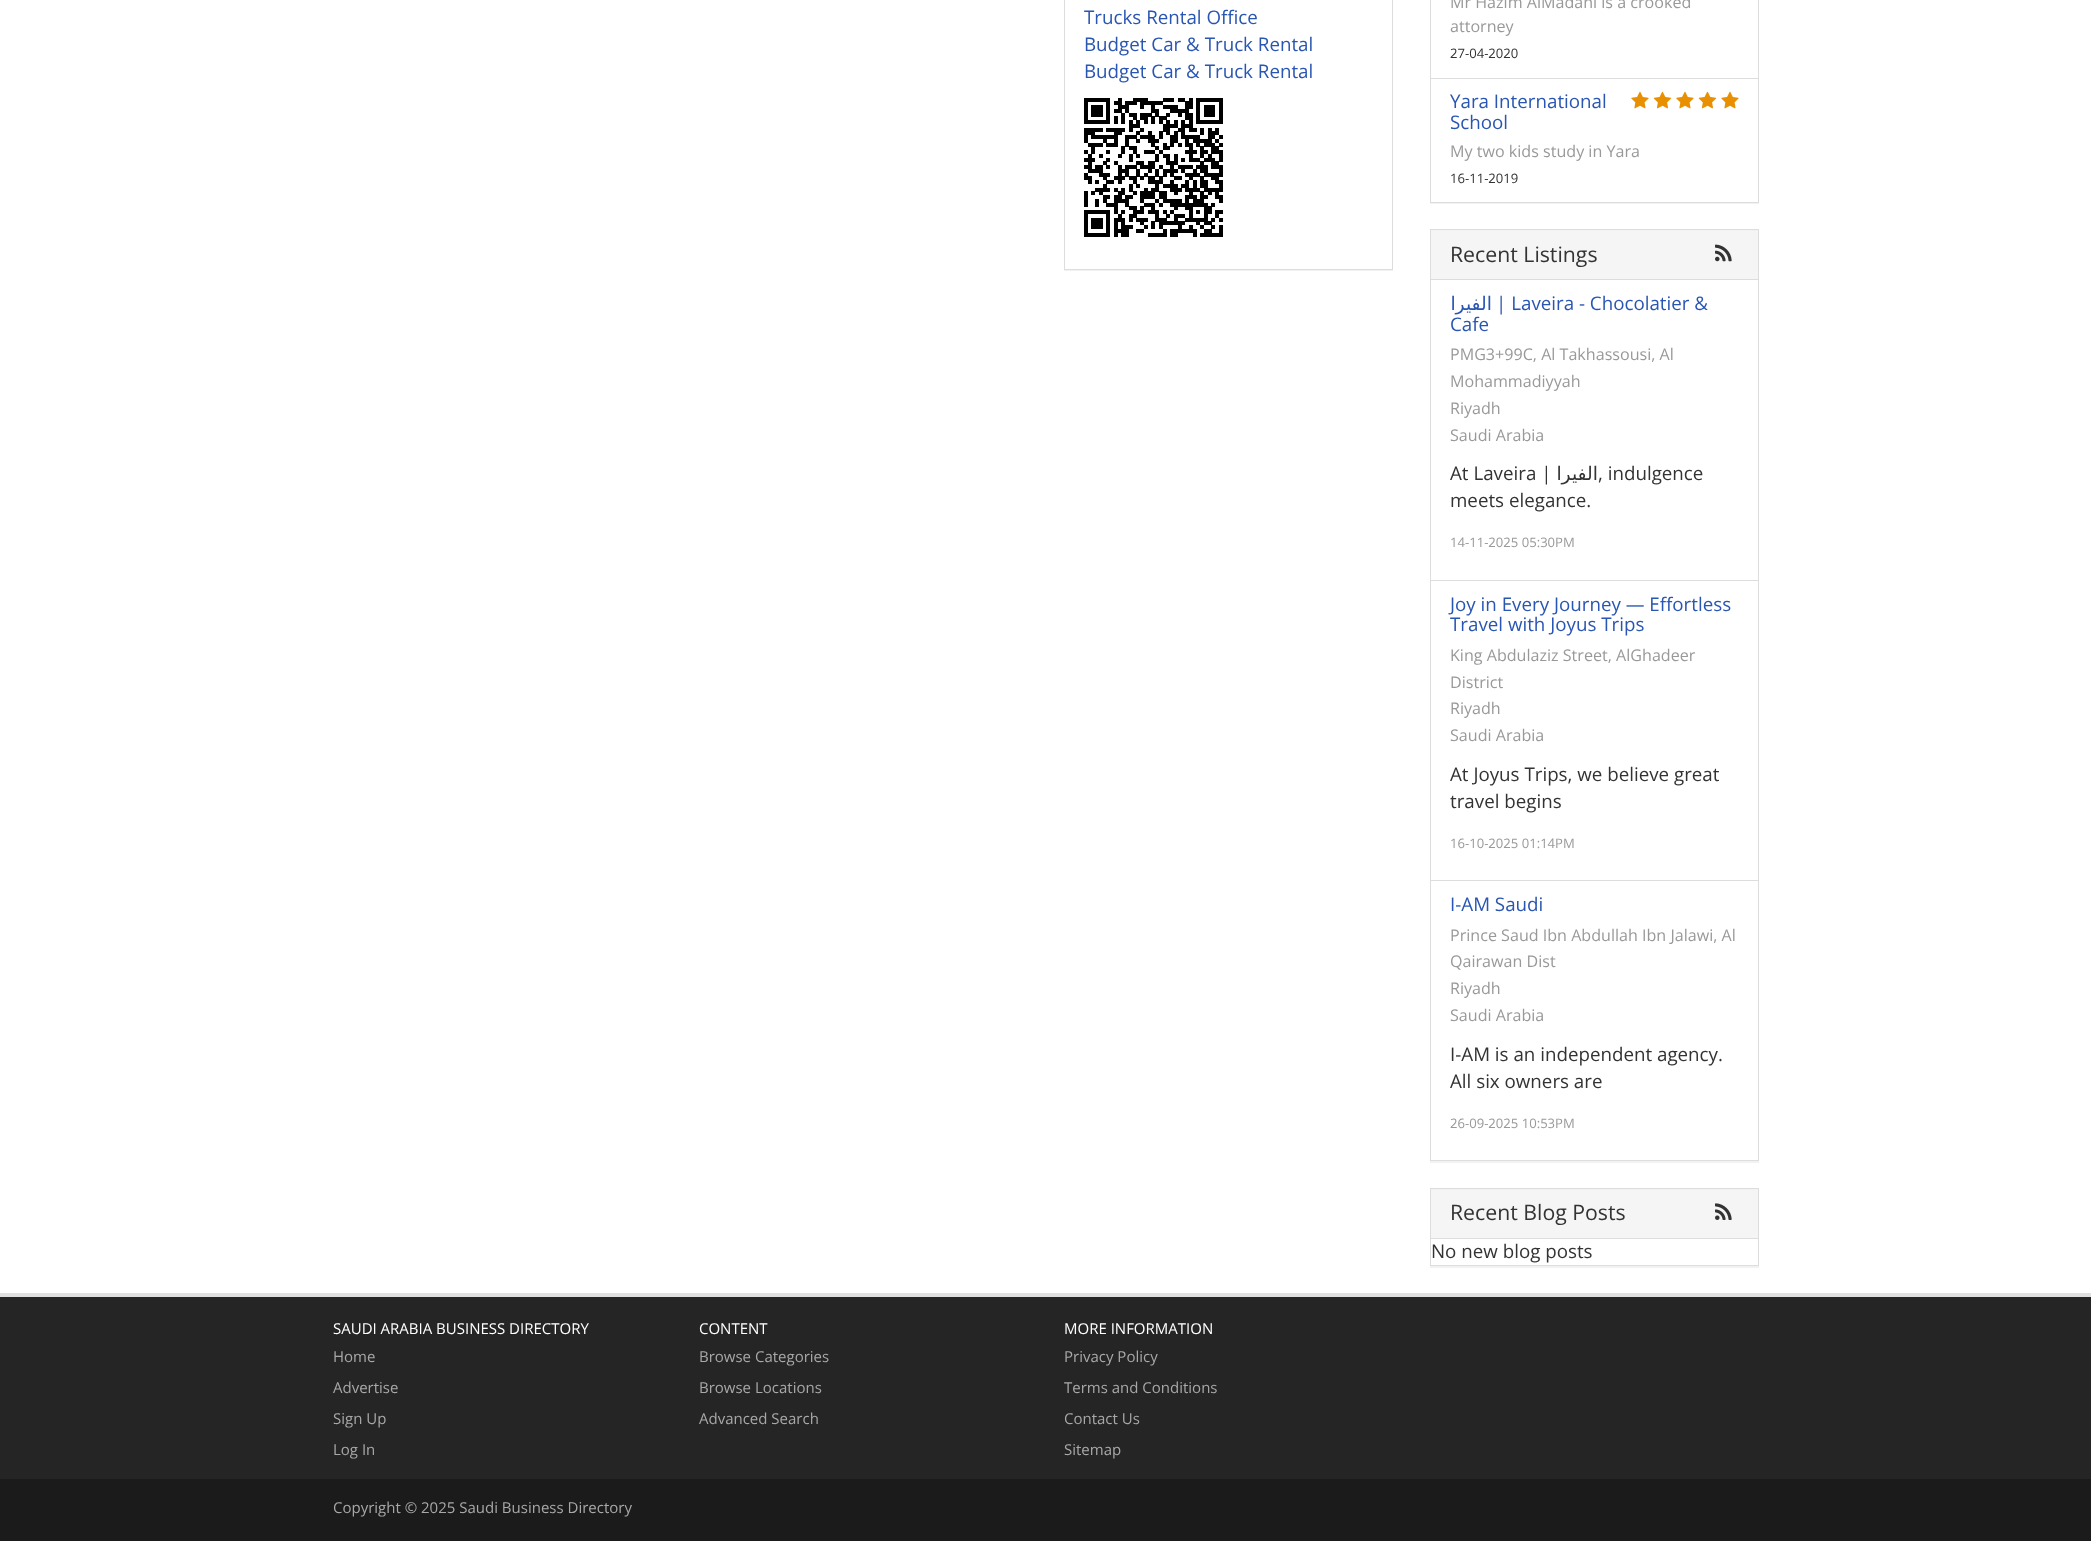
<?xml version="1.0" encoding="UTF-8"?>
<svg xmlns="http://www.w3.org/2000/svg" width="2091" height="1541">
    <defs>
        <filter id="blur1" x="-50%" y="-200%" width="200%" height="500%"><feGaussianBlur stdDeviation="0.5"/></filter>
    </defs>
    <rect width="100%" height="100%" fill="#FFFFFF"/>
    <rect x="1064" y="-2" width="329" height="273" fill="#000000" fill-opacity="0.05" filter="url(#blur1)"/>
    <rect x="1064.5" y="-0.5" width="328" height="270" fill="#FFFFFF" stroke="#DDDDDD"/>
    <text font-family="Open Sans" font-size="18.75" fill="#2956B2">
        <tspan x="1084" y="24">Trucks Rental Office</tspan>
        <tspan x="1084" y="51">Budget Car &amp; Truck Rental</tspan>
        <tspan x="1084" y="78">Budget Car &amp; Truck Rental</tspan>
    </text>
    <rect x="1084" y="98" width="4" height="26" fill="#000000"/>
    <rect x="1088" y="98" width="19" height="4" fill="#000000"/>
    <rect x="1106" y="98" width="4" height="22" fill="#000000"/>
    <rect x="1118" y="98" width="4" height="3" fill="#000000"/>
    <rect x="1133" y="98" width="4" height="3" fill="#000000"/>
    <rect x="1136" y="98" width="4" height="4" fill="#000000"/>
    <rect x="1140" y="98" width="8" height="3" fill="#000000"/>
    <rect x="1163" y="98" width="11" height="4" fill="#000000"/>
    <rect x="1178" y="98" width="7" height="4" fill="#000000"/>
    <rect x="1189" y="98" width="4" height="3" fill="#000000"/>
    <rect x="1196" y="98" width="4" height="26" fill="#000000"/>
    <rect x="1200" y="98" width="19" height="4" fill="#000000"/>
    <rect x="1219" y="98" width="4" height="22" fill="#000000"/>
    <rect x="1114" y="101" width="8" height="4" fill="#000000"/>
    <rect x="1125" y="101" width="12" height="4" fill="#000000"/>
    <rect x="1140" y="101" width="23" height="4" fill="#000000"/>
    <rect x="1185" y="101" width="8" height="4" fill="#000000"/>
    <rect x="1091" y="105" width="12" height="4" fill="#000000"/>
    <rect x="1118" y="105" width="11" height="4" fill="#000000"/>
    <rect x="1140" y="105" width="4" height="4" fill="#000000"/>
    <rect x="1151" y="105" width="4" height="8" fill="#000000"/>
    <rect x="1163" y="105" width="15" height="4" fill="#000000"/>
    <rect x="1185" y="105" width="8" height="4" fill="#000000"/>
    <rect x="1204" y="105" width="11" height="4" fill="#000000"/>
    <rect x="1091" y="109" width="12" height="4" fill="#000000"/>
    <rect x="1114" y="109" width="8" height="4" fill="#000000"/>
    <rect x="1125" y="109" width="4" height="4" fill="#000000"/>
    <rect x="1155" y="109" width="4" height="8" fill="#000000"/>
    <rect x="1170" y="109" width="19" height="4" fill="#000000"/>
    <rect x="1204" y="109" width="11" height="4" fill="#000000"/>
    <rect x="1091" y="113" width="12" height="4" fill="#000000"/>
    <rect x="1121" y="113" width="4" height="11" fill="#000000"/>
    <rect x="1129" y="113" width="4" height="4" fill="#000000"/>
    <rect x="1133" y="113" width="4" height="7" fill="#000000"/>
    <rect x="1140" y="113" width="8" height="3" fill="#000000"/>
    <rect x="1148" y="113" width="4" height="4" fill="#000000"/>
    <rect x="1166" y="113" width="4" height="4" fill="#000000"/>
    <rect x="1178" y="113" width="4" height="4" fill="#000000"/>
    <rect x="1185" y="113" width="8" height="3" fill="#000000"/>
    <rect x="1204" y="113" width="11" height="4" fill="#000000"/>
    <rect x="1114" y="116" width="4" height="8" fill="#000000"/>
    <rect x="1140" y="116" width="8" height="4" fill="#000000"/>
    <rect x="1151" y="116" width="4" height="8" fill="#000000"/>
    <rect x="1159" y="116" width="8" height="4" fill="#000000"/>
    <rect x="1185" y="116" width="8" height="4" fill="#000000"/>
    <rect x="1088" y="120" width="22" height="4" fill="#000000"/>
    <rect x="1129" y="120" width="4" height="12" fill="#000000"/>
    <rect x="1136" y="120" width="4" height="4" fill="#000000"/>
    <rect x="1144" y="120" width="4" height="4" fill="#000000"/>
    <rect x="1159" y="120" width="4" height="4" fill="#000000"/>
    <rect x="1166" y="120" width="4" height="4" fill="#000000"/>
    <rect x="1174" y="120" width="4" height="4" fill="#000000"/>
    <rect x="1181" y="120" width="4" height="8" fill="#000000"/>
    <rect x="1189" y="120" width="4" height="4" fill="#000000"/>
    <rect x="1200" y="120" width="23" height="4" fill="#000000"/>
    <rect x="1133" y="124" width="7" height="4" fill="#000000"/>
    <rect x="1163" y="124" width="15" height="4" fill="#000000"/>
    <rect x="1185" y="124" width="8" height="4" fill="#000000"/>
    <rect x="1084" y="128" width="11" height="3" fill="#000000"/>
    <rect x="1095" y="128" width="8" height="4" fill="#000000"/>
    <rect x="1106" y="128" width="8" height="4" fill="#000000"/>
    <rect x="1114" y="128" width="8" height="3" fill="#000000"/>
    <rect x="1121" y="128" width="4" height="4" fill="#000000"/>
    <rect x="1140" y="128" width="4" height="4" fill="#000000"/>
    <rect x="1163" y="128" width="4" height="4" fill="#000000"/>
    <rect x="1166" y="128" width="4" height="7" fill="#000000"/>
    <rect x="1178" y="128" width="4" height="4" fill="#000000"/>
    <rect x="1181" y="128" width="4" height="11" fill="#000000"/>
    <rect x="1189" y="128" width="8" height="4" fill="#000000"/>
    <rect x="1200" y="128" width="4" height="7" fill="#000000"/>
    <rect x="1208" y="128" width="4" height="11" fill="#000000"/>
    <rect x="1215" y="128" width="4" height="3" fill="#000000"/>
    <rect x="1084" y="131" width="11" height="4" fill="#000000"/>
    <rect x="1114" y="131" width="8" height="4" fill="#000000"/>
    <rect x="1136" y="131" width="4" height="4" fill="#000000"/>
    <rect x="1148" y="131" width="4" height="4" fill="#000000"/>
    <rect x="1159" y="131" width="4" height="8" fill="#000000"/>
    <rect x="1174" y="131" width="4" height="4" fill="#000000"/>
    <rect x="1211" y="131" width="8" height="4" fill="#000000"/>
    <rect x="1084" y="135" width="4" height="8" fill="#000000"/>
    <rect x="1091" y="135" width="27" height="4" fill="#000000"/>
    <rect x="1125" y="135" width="12" height="4" fill="#000000"/>
    <rect x="1140" y="135" width="15" height="4" fill="#000000"/>
    <rect x="1170" y="135" width="8" height="4" fill="#000000"/>
    <rect x="1185" y="135" width="15" height="4" fill="#000000"/>
    <rect x="1211" y="135" width="4" height="4" fill="#000000"/>
    <rect x="1219" y="135" width="4" height="4" fill="#000000"/>
    <rect x="1103" y="139" width="4" height="4" fill="#000000"/>
    <rect x="1114" y="139" width="4" height="4" fill="#000000"/>
    <rect x="1125" y="139" width="4" height="8" fill="#000000"/>
    <rect x="1136" y="139" width="4" height="4" fill="#000000"/>
    <rect x="1148" y="139" width="11" height="4" fill="#000000"/>
    <rect x="1170" y="139" width="8" height="4" fill="#000000"/>
    <rect x="1185" y="139" width="4" height="8" fill="#000000"/>
    <rect x="1193" y="139" width="19" height="4" fill="#000000"/>
    <rect x="1215" y="139" width="4" height="4" fill="#000000"/>
    <rect x="1088" y="143" width="4" height="4" fill="#000000"/>
    <rect x="1091" y="143" width="4" height="11" fill="#000000"/>
    <rect x="1095" y="143" width="8" height="4" fill="#000000"/>
    <rect x="1106" y="143" width="12" height="4" fill="#000000"/>
    <rect x="1151" y="143" width="4" height="4" fill="#000000"/>
    <rect x="1163" y="143" width="4" height="7" fill="#000000"/>
    <rect x="1170" y="143" width="4" height="4" fill="#000000"/>
    <rect x="1178" y="143" width="4" height="4" fill="#000000"/>
    <rect x="1189" y="143" width="4" height="7" fill="#000000"/>
    <rect x="1196" y="143" width="4" height="4" fill="#000000"/>
    <rect x="1204" y="143" width="8" height="4" fill="#000000"/>
    <rect x="1211" y="143" width="4" height="11" fill="#000000"/>
    <rect x="1219" y="143" width="4" height="4" fill="#000000"/>
    <rect x="1084" y="150" width="4" height="4" fill="#000000"/>
    <rect x="1106" y="150" width="4" height="4" fill="#000000"/>
    <rect x="1121" y="146" width="4" height="8" fill="#000000"/>
    <rect x="1129" y="146" width="8" height="4" fill="#000000"/>
    <rect x="1155" y="146" width="4" height="4" fill="#000000"/>
    <rect x="1166" y="146" width="4" height="4" fill="#000000"/>
    <rect x="1200" y="146" width="4" height="12" fill="#000000"/>
    <rect x="1215" y="146" width="4" height="8" fill="#000000"/>
    <rect x="1088" y="154" width="4" height="7" fill="#000000"/>
    <rect x="1099" y="154" width="4" height="4" fill="#000000"/>
    <rect x="1118" y="154" width="4" height="4" fill="#000000"/>
    <rect x="1129" y="154" width="4" height="8" fill="#000000"/>
    <rect x="1133" y="150" width="4" height="4" fill="#000000"/>
    <rect x="1136" y="154" width="4" height="4" fill="#000000"/>
    <rect x="1144" y="150" width="11" height="4" fill="#000000"/>
    <rect x="1155" y="154" width="4" height="8" fill="#000000"/>
    <rect x="1159" y="150" width="4" height="4" fill="#000000"/>
    <rect x="1163" y="154" width="7" height="4" fill="#000000"/>
    <rect x="1174" y="154" width="4" height="7" fill="#000000"/>
    <rect x="1185" y="150" width="12" height="4" fill="#000000"/>
    <rect x="1204" y="150" width="4" height="4" fill="#000000"/>
    <rect x="1219" y="150" width="4" height="12" fill="#000000"/>
    <rect x="1189" y="154" width="4" height="8" fill="#000000"/>
    <rect x="1208" y="154" width="4" height="4" fill="#000000"/>
    <rect x="1084" y="158" width="4" height="4" fill="#000000"/>
    <rect x="1091" y="158" width="4" height="4" fill="#000000"/>
    <rect x="1088" y="161" width="4" height="4" fill="#000000"/>
    <rect x="1106" y="158" width="4" height="4" fill="#000000"/>
    <rect x="1103" y="161" width="4" height="4" fill="#000000"/>
    <rect x="1114" y="161" width="4" height="4" fill="#000000"/>
    <rect x="1136" y="161" width="8" height="4" fill="#000000"/>
    <rect x="1148" y="161" width="7" height="4" fill="#000000"/>
    <rect x="1166" y="158" width="4" height="7" fill="#000000"/>
    <rect x="1170" y="161" width="8" height="4" fill="#000000"/>
    <rect x="1181" y="158" width="4" height="4" fill="#000000"/>
    <rect x="1193" y="158" width="7" height="4" fill="#000000"/>
    <rect x="1200" y="161" width="4" height="4" fill="#000000"/>
    <rect x="1204" y="158" width="8" height="4" fill="#000000"/>
    <rect x="1211" y="158" width="4" height="11" fill="#000000"/>
    <rect x="1215" y="161" width="4" height="8" fill="#000000"/>
    <rect x="1084" y="165" width="8" height="4" fill="#000000"/>
    <rect x="1095" y="165" width="8" height="4" fill="#000000"/>
    <rect x="1106" y="165" width="4" height="4" fill="#000000"/>
    <rect x="1118" y="165" width="4" height="11" fill="#000000"/>
    <rect x="1125" y="165" width="12" height="4" fill="#000000"/>
    <rect x="1140" y="165" width="15" height="4" fill="#000000"/>
    <rect x="1159" y="165" width="4" height="4" fill="#000000"/>
    <rect x="1170" y="165" width="4" height="4" fill="#000000"/>
    <rect x="1178" y="165" width="15" height="4" fill="#000000"/>
    <rect x="1196" y="165" width="12" height="4" fill="#000000"/>
    <rect x="1219" y="165" width="4" height="12" fill="#000000"/>
    <rect x="1088" y="169" width="15" height="4" fill="#000000"/>
    <rect x="1121" y="169" width="8" height="4" fill="#000000"/>
    <rect x="1136" y="169" width="4" height="8" fill="#000000"/>
    <rect x="1148" y="169" width="4" height="4" fill="#000000"/>
    <rect x="1155" y="169" width="4" height="8" fill="#000000"/>
    <rect x="1163" y="169" width="15" height="4" fill="#000000"/>
    <rect x="1181" y="169" width="4" height="4" fill="#000000"/>
    <rect x="1193" y="169" width="4" height="8" fill="#000000"/>
    <rect x="1200" y="169" width="8" height="4" fill="#000000"/>
    <rect x="1084" y="173" width="4" height="7" fill="#000000"/>
    <rect x="1099" y="173" width="4" height="4" fill="#000000"/>
    <rect x="1103" y="173" width="4" height="3" fill="#000000"/>
    <rect x="1106" y="173" width="4" height="4" fill="#000000"/>
    <rect x="1125" y="173" width="4" height="4" fill="#000000"/>
    <rect x="1144" y="173" width="4" height="4" fill="#000000"/>
    <rect x="1163" y="173" width="4" height="4" fill="#000000"/>
    <rect x="1170" y="173" width="4" height="4" fill="#000000"/>
    <rect x="1185" y="173" width="4" height="4" fill="#000000"/>
    <rect x="1189" y="173" width="4" height="7" fill="#000000"/>
    <rect x="1196" y="173" width="4" height="4" fill="#000000"/>
    <rect x="1204" y="173" width="8" height="4" fill="#000000"/>
    <rect x="1211" y="173" width="8" height="3" fill="#000000"/>
    <rect x="1088" y="176" width="4" height="8" fill="#000000"/>
    <rect x="1103" y="176" width="4" height="4" fill="#000000"/>
    <rect x="1114" y="176" width="11" height="4" fill="#000000"/>
    <rect x="1129" y="176" width="8" height="4" fill="#000000"/>
    <rect x="1140" y="176" width="4" height="4" fill="#000000"/>
    <rect x="1148" y="176" width="7" height="4" fill="#000000"/>
    <rect x="1159" y="176" width="4" height="4" fill="#000000"/>
    <rect x="1174" y="176" width="8" height="4" fill="#000000"/>
    <rect x="1200" y="176" width="4" height="12" fill="#000000"/>
    <rect x="1211" y="176" width="8" height="4" fill="#000000"/>
    <rect x="1095" y="180" width="4" height="4" fill="#000000"/>
    <rect x="1106" y="180" width="8" height="4" fill="#000000"/>
    <rect x="1118" y="180" width="4" height="4" fill="#000000"/>
    <rect x="1133" y="180" width="4" height="4" fill="#000000"/>
    <rect x="1148" y="180" width="15" height="4" fill="#000000"/>
    <rect x="1170" y="180" width="4" height="4" fill="#000000"/>
    <rect x="1185" y="180" width="4" height="4" fill="#000000"/>
    <rect x="1193" y="180" width="4" height="12" fill="#000000"/>
    <rect x="1204" y="180" width="4" height="12" fill="#000000"/>
    <rect x="1215" y="180" width="8" height="4" fill="#000000"/>
    <rect x="1095" y="188" width="4" height="4" fill="#000000"/>
    <rect x="1099" y="188" width="4" height="7" fill="#000000"/>
    <rect x="1103" y="184" width="4" height="8" fill="#000000"/>
    <rect x="1106" y="188" width="4" height="4" fill="#000000"/>
    <rect x="1114" y="188" width="4" height="4" fill="#000000"/>
    <rect x="1121" y="188" width="4" height="3" fill="#000000"/>
    <rect x="1129" y="184" width="4" height="8" fill="#000000"/>
    <rect x="1136" y="184" width="4" height="4" fill="#000000"/>
    <rect x="1144" y="188" width="4" height="3" fill="#000000"/>
    <rect x="1151" y="188" width="4" height="3" fill="#000000"/>
    <rect x="1155" y="184" width="4" height="8" fill="#000000"/>
    <rect x="1163" y="184" width="15" height="4" fill="#000000"/>
    <rect x="1181" y="184" width="8" height="4" fill="#000000"/>
    <rect x="1219" y="184" width="4" height="8" fill="#000000"/>
    <rect x="1084" y="191" width="4" height="16" fill="#000000"/>
    <rect x="1091" y="191" width="4" height="4" fill="#000000"/>
    <rect x="1118" y="191" width="7" height="4" fill="#000000"/>
    <rect x="1133" y="191" width="4" height="4" fill="#000000"/>
    <rect x="1140" y="191" width="15" height="4" fill="#000000"/>
    <rect x="1159" y="191" width="8" height="4" fill="#000000"/>
    <rect x="1170" y="188" width="4" height="4" fill="#000000"/>
    <rect x="1174" y="188" width="4" height="7" fill="#000000"/>
    <rect x="1178" y="188" width="4" height="4" fill="#000000"/>
    <rect x="1185" y="188" width="4" height="4" fill="#000000"/>
    <rect x="1189" y="188" width="4" height="7" fill="#000000"/>
    <rect x="1196" y="188" width="4" height="4" fill="#000000"/>
    <rect x="1200" y="191" width="4" height="8" fill="#000000"/>
    <rect x="1208" y="188" width="4" height="3" fill="#000000"/>
    <rect x="1211" y="188" width="4" height="4" fill="#000000"/>
    <rect x="1215" y="188" width="4" height="11" fill="#000000"/>
    <rect x="1208" y="191" width="4" height="4" fill="#000000"/>
    <rect x="1095" y="199" width="4" height="8" fill="#000000"/>
    <rect x="1103" y="195" width="7" height="4" fill="#000000"/>
    <rect x="1114" y="195" width="8" height="4" fill="#000000"/>
    <rect x="1125" y="195" width="8" height="4" fill="#000000"/>
    <rect x="1140" y="195" width="15" height="4" fill="#000000"/>
    <rect x="1159" y="195" width="8" height="4" fill="#000000"/>
    <rect x="1185" y="195" width="12" height="4" fill="#000000"/>
    <rect x="1204" y="195" width="4" height="4" fill="#000000"/>
    <rect x="1219" y="195" width="4" height="8" fill="#000000"/>
    <rect x="1103" y="199" width="4" height="4" fill="#000000"/>
    <rect x="1114" y="199" width="15" height="4" fill="#000000"/>
    <rect x="1140" y="199" width="4" height="4" fill="#000000"/>
    <rect x="1155" y="199" width="4" height="4" fill="#000000"/>
    <rect x="1163" y="199" width="19" height="4" fill="#000000"/>
    <rect x="1185" y="199" width="4" height="11" fill="#000000"/>
    <rect x="1193" y="199" width="11" height="4" fill="#000000"/>
    <rect x="1106" y="203" width="8" height="4" fill="#000000"/>
    <rect x="1114" y="203" width="4" height="11" fill="#000000"/>
    <rect x="1125" y="203" width="4" height="4" fill="#000000"/>
    <rect x="1144" y="203" width="8" height="4" fill="#000000"/>
    <rect x="1151" y="203" width="4" height="7" fill="#000000"/>
    <rect x="1159" y="203" width="4" height="4" fill="#000000"/>
    <rect x="1170" y="203" width="4" height="4" fill="#000000"/>
    <rect x="1174" y="203" width="4" height="7" fill="#000000"/>
    <rect x="1178" y="203" width="7" height="4" fill="#000000"/>
    <rect x="1189" y="203" width="4" height="15" fill="#000000"/>
    <rect x="1193" y="203" width="11" height="4" fill="#000000"/>
    <rect x="1204" y="203" width="4" height="22" fill="#000000"/>
    <rect x="1211" y="203" width="4" height="4" fill="#000000"/>
    <rect x="1084" y="210" width="26" height="4" fill="#000000"/>
    <rect x="1121" y="210" width="4" height="4" fill="#000000"/>
    <rect x="1129" y="206" width="8" height="4" fill="#000000"/>
    <rect x="1140" y="206" width="4" height="4" fill="#000000"/>
    <rect x="1208" y="206" width="4" height="8" fill="#000000"/>
    <rect x="1133" y="210" width="11" height="4" fill="#000000"/>
    <rect x="1148" y="210" width="11" height="4" fill="#000000"/>
    <rect x="1163" y="210" width="4" height="4" fill="#000000"/>
    <rect x="1170" y="210" width="4" height="4" fill="#000000"/>
    <rect x="1196" y="210" width="4" height="4" fill="#000000"/>
    <rect x="1215" y="210" width="8" height="4" fill="#000000"/>
    <rect x="1084" y="214" width="4" height="23" fill="#000000"/>
    <rect x="1106" y="214" width="4" height="19" fill="#000000"/>
    <rect x="1118" y="214" width="4" height="8" fill="#000000"/>
    <rect x="1129" y="214" width="8" height="4" fill="#000000"/>
    <rect x="1155" y="214" width="4" height="8" fill="#000000"/>
    <rect x="1166" y="214" width="4" height="4" fill="#000000"/>
    <rect x="1174" y="214" width="11" height="4" fill="#000000"/>
    <rect x="1215" y="214" width="4" height="4" fill="#000000"/>
    <rect x="1091" y="218" width="12" height="3" fill="#000000"/>
    <rect x="1114" y="218" width="4" height="19" fill="#000000"/>
    <rect x="1121" y="218" width="4" height="11" fill="#000000"/>
    <rect x="1129" y="218" width="4" height="4" fill="#000000"/>
    <rect x="1136" y="218" width="4" height="4" fill="#000000"/>
    <rect x="1140" y="218" width="4" height="7" fill="#000000"/>
    <rect x="1144" y="218" width="4" height="4" fill="#000000"/>
    <rect x="1159" y="218" width="8" height="3" fill="#000000"/>
    <rect x="1174" y="218" width="4" height="3" fill="#000000"/>
    <rect x="1185" y="218" width="12" height="4" fill="#000000"/>
    <rect x="1196" y="218" width="4" height="7" fill="#000000"/>
    <rect x="1200" y="218" width="4" height="4" fill="#000000"/>
    <rect x="1211" y="218" width="4" height="4" fill="#000000"/>
    <rect x="1219" y="218" width="4" height="4" fill="#000000"/>
    <rect x="1091" y="221" width="12" height="4" fill="#000000"/>
    <rect x="1151" y="221" width="4" height="8" fill="#000000"/>
    <rect x="1159" y="221" width="26" height="4" fill="#000000"/>
    <rect x="1208" y="221" width="4" height="4" fill="#000000"/>
    <rect x="1091" y="225" width="12" height="4" fill="#000000"/>
    <rect x="1125" y="225" width="8" height="4" fill="#000000"/>
    <rect x="1144" y="225" width="4" height="4" fill="#000000"/>
    <rect x="1159" y="225" width="4" height="4" fill="#000000"/>
    <rect x="1178" y="225" width="4" height="4" fill="#000000"/>
    <rect x="1189" y="225" width="4" height="4" fill="#000000"/>
    <rect x="1200" y="225" width="4" height="4" fill="#000000"/>
    <rect x="1211" y="225" width="4" height="4" fill="#000000"/>
    <rect x="1219" y="225" width="4" height="8" fill="#000000"/>
    <rect x="1118" y="229" width="11" height="4" fill="#000000"/>
    <rect x="1136" y="229" width="8" height="4" fill="#000000"/>
    <rect x="1163" y="229" width="4" height="4" fill="#000000"/>
    <rect x="1170" y="229" width="27" height="4" fill="#000000"/>
    <rect x="1204" y="229" width="8" height="4" fill="#000000"/>
    <rect x="1088" y="233" width="22" height="4" fill="#000000"/>
    <rect x="1121" y="233" width="8" height="4" fill="#000000"/>
    <rect x="1148" y="233" width="19" height="4" fill="#000000"/>
    <rect x="1170" y="233" width="8" height="4" fill="#000000"/>
    <rect x="1193" y="233" width="4" height="4" fill="#000000"/>
    <rect x="1200" y="233" width="23" height="4" fill="#000000"/>
    <rect x="1430" y="-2" width="329" height="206" fill="#000000" fill-opacity="0.05" filter="url(#blur1)"/>
    <rect x="1430.5" y="-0.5" width="328" height="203" fill="#FFFFFF" stroke="#DDDDDD"/>
    <text font-family="Open Sans" font-size="16.1" fill="#999999">
        <tspan x="1450" y="8">Mr Hazim AlMadani is a crooked</tspan>
        <tspan x="1450" y="32">attorney</tspan>
    </text>
    <text x="1450" y="58" font-family="Open Sans" font-size="13.1" fill="#333333">27-04-2020</text>
    <rect x="1431" y="78" width="327" height="1" fill="#DDDDDD"/>
    <text font-family="Open Sans" font-size="18.75" fill="#2956B2">
        <tspan x="1450" y="108">Yara International</tspan>
        <tspan x="1450" y="129">School</tspan>
    </text>
    <image x="1631" y="91" width="18" height="18" href="img_01.png"/>
    <image x="1653" y="91" width="19" height="18" href="img_02.png"/>
    <image x="1676" y="91" width="18" height="18" href="img_01.png"/>
    <image x="1698" y="91" width="19" height="18" href="img_02.png"/>
    <image x="1721" y="91" width="18" height="18" href="img_01.png"/>
    <text x="1450" y="157" font-family="Open Sans" font-size="16.1" fill="#999999">My two kids study in Yara</text>
    <text x="1450" y="183" font-family="Open Sans" font-size="13.1" fill="#333333">16-11-2019</text>
    <rect x="1430" y="230" width="329" height="933" fill="#000000" fill-opacity="0.05" filter="url(#blur1)"/>
    <rect x="1431" y="280" width="327" height="600" fill="#FFFFFF"/>
    <rect x="1430.5" y="229.5" width="328" height="931" fill="none" stroke="#DDDDDD"/>
    <rect x="1431" y="231" width="327" height="48" fill="#F5F5F5"/>
    <rect x="1431" y="279" width="327" height="1" fill="#DDDDDD"/>
    <text x="1450" y="262" font-family="Open Sans" font-size="21.25" fill="#333333">Recent Listings</text>
    <image x="1715" y="244" width="17" height="18" href="img_03.png"/>
    <rect x="1431" y="580" width="327" height="1" fill="#DDDDDD"/>
    <text x="1492" y="310" font-family="DejaVu Sans" font-size="18.75" direction="rtl" fill="#2956B2">الفيرا</text>
    <text x="1496" y="310" font-family="Open Sans" font-size="18.75" fill="#2956B2">| Laveira - Chocolatier &amp;</text>
    <text x="1450" y="331" font-family="Open Sans" font-size="18.75" fill="#2956B2">Cafe</text>
    <text font-family="Open Sans" font-size="16.1" fill="#999999">
        <tspan x="1450" y="360">PMG3+99C, Al Takhassousi, Al</tspan>
        <tspan x="1450" y="387">Mohammadiyyah</tspan>
        <tspan x="1450" y="414">Riyadh</tspan>
        <tspan x="1450" y="441">Saudi Arabia</tspan>
    </text>
    <text x="1450" y="480" font-family="Open Sans" font-size="18.75" fill="#333333">At Laveira |</text>
    <text x="1598" y="480" font-family="DejaVu Sans" font-size="18.75" direction="rtl" fill="#333333">الفيرا</text>
    <text x="1598" y="480" font-family="Open Sans" font-size="18.75" fill="#333333">, indulgence</text>
    <text x="1450" y="507" font-family="Open Sans" font-size="18.75" fill="#333333">meets elegance.</text>
    <text x="1450" y="547" font-family="Open Sans" font-size="13.1" fill="#999999">14-11-2025 05:30PM</text>
    <text font-family="Open Sans" font-size="18.75" fill="#2956B2">
        <tspan x="1450" y="611">Joy in Every Journey — Effortless</tspan>
        <tspan x="1450" y="631">Travel with Joyus Trips</tspan>
    </text>
    <text font-family="Open Sans" font-size="16.1" fill="#999999">
        <tspan x="1450" y="661">King Abdulaziz Street, AlGhadeer</tspan>
        <tspan x="1450" y="688">District</tspan>
        <tspan x="1450" y="714">Riyadh</tspan>
        <tspan x="1450" y="741">Saudi Arabia</tspan>
    </text>
    <text font-family="Open Sans" font-size="18.75" fill="#333333">
        <tspan x="1450" y="781">At Joyus Trips, we believe great</tspan>
        <tspan x="1450" y="808">travel begins</tspan>
    </text>
    <text x="1450" y="848" font-family="Open Sans" font-size="13.1" fill="#999999">16-10-2025 01:14PM</text>
    <rect x="1431" y="881" width="327" height="279" fill="#FFFFFF"/>
    <rect x="1431" y="880" width="327" height="1" fill="#DDDDDD"/>
    <text x="1450" y="911" font-family="Open Sans" font-size="18.75" fill="#2956B2">I-AM Saudi</text>
    <text font-family="Open Sans" font-size="16.1" fill="#999999">
        <tspan x="1450" y="941">Prince Saud Ibn Abdullah Ibn Jalawi, Al</tspan>
        <tspan x="1450" y="967">Qairawan Dist</tspan>
        <tspan x="1450" y="994">Riyadh</tspan>
        <tspan x="1450" y="1021">Saudi Arabia</tspan>
    </text>
    <text font-family="Open Sans" font-size="18.75" fill="#333333">
        <tspan x="1450" y="1061">I-AM is an independent agency.</tspan>
        <tspan x="1450" y="1088">All six owners are</tspan>
    </text>
    <text x="1450" y="1128" font-family="Open Sans" font-size="13.1" fill="#999999">26-09-2025 10:53PM</text>
    <rect x="1430" y="1189" width="329" height="79" fill="#000000" fill-opacity="0.05" filter="url(#blur1)"/>
    <rect x="1431" y="1239" width="327" height="26" fill="#FFFFFF"/>
    <rect x="1430.5" y="1188.5" width="328" height="77" fill="none" stroke="#DDDDDD"/>
    <rect x="1431" y="1190" width="327" height="48" fill="#F5F5F5"/>
    <rect x="1431" y="1238" width="327" height="1" fill="#DDDDDD"/>
    <text x="1450" y="1220" font-family="Open Sans" font-size="21.25" fill="#333333">Recent Blog Posts</text>
    <image x="1715" y="1203" width="17" height="17" href="img_04.png"/>
    <text x="1431" y="1258" font-family="Open Sans" font-size="18.75" fill="#333333">No new blog posts</text>
    <rect x="0" y="1297" width="2091" height="182" fill="#252525"/>
    <rect x="0" y="1293" width="2091" height="4" fill="#E0E0E0"/>
    <text x="333" y="1334" font-family="Open Sans" font-size="15" fill="#FFFFFF">SAUDI ARABIA BUSINESS DIRECTORY</text>
    <text x="333" y="1362" font-family="Open Sans" font-size="15" fill="#A8A8A8">Home</text>
    <text x="333" y="1393" font-family="Open Sans" font-size="15" fill="#A8A8A8">Advertise</text>
    <text x="333" y="1424" font-family="Open Sans" font-size="15" fill="#A8A8A8">Sign Up</text>
    <text x="333" y="1455" font-family="Open Sans" font-size="15" fill="#A8A8A8">Log In</text>
    <text x="699" y="1334" font-family="Open Sans" font-size="15" fill="#FFFFFF">CONTENT</text>
    <text x="699" y="1362" font-family="Open Sans" font-size="15" fill="#A8A8A8">Browse Categories</text>
    <text x="699" y="1393" font-family="Open Sans" font-size="15" fill="#A8A8A8">Browse Locations</text>
    <text x="699" y="1424" font-family="Open Sans" font-size="15" fill="#A8A8A8">Advanced Search</text>
    <text x="1064" y="1334" font-family="Open Sans" font-size="15" fill="#FFFFFF">MORE INFORMATION</text>
    <text x="1064" y="1362" font-family="Open Sans" font-size="15" fill="#A8A8A8">Privacy Policy</text>
    <text x="1064" y="1393" font-family="Open Sans" font-size="15" fill="#A8A8A8">Terms and Conditions</text>
    <text x="1064" y="1424" font-family="Open Sans" font-size="15" fill="#A8A8A8">Contact Us</text>
    <text x="1064" y="1455" font-family="Open Sans" font-size="15" fill="#A8A8A8">Sitemap</text>
    <rect x="0" y="1479" width="2091" height="62" fill="#1B1B1B"/>
    <text x="333" y="1513" font-family="Open Sans" font-size="15" fill="#A8A8A8">Copyright © 2025 Saudi Business Directory</text>
</svg>
